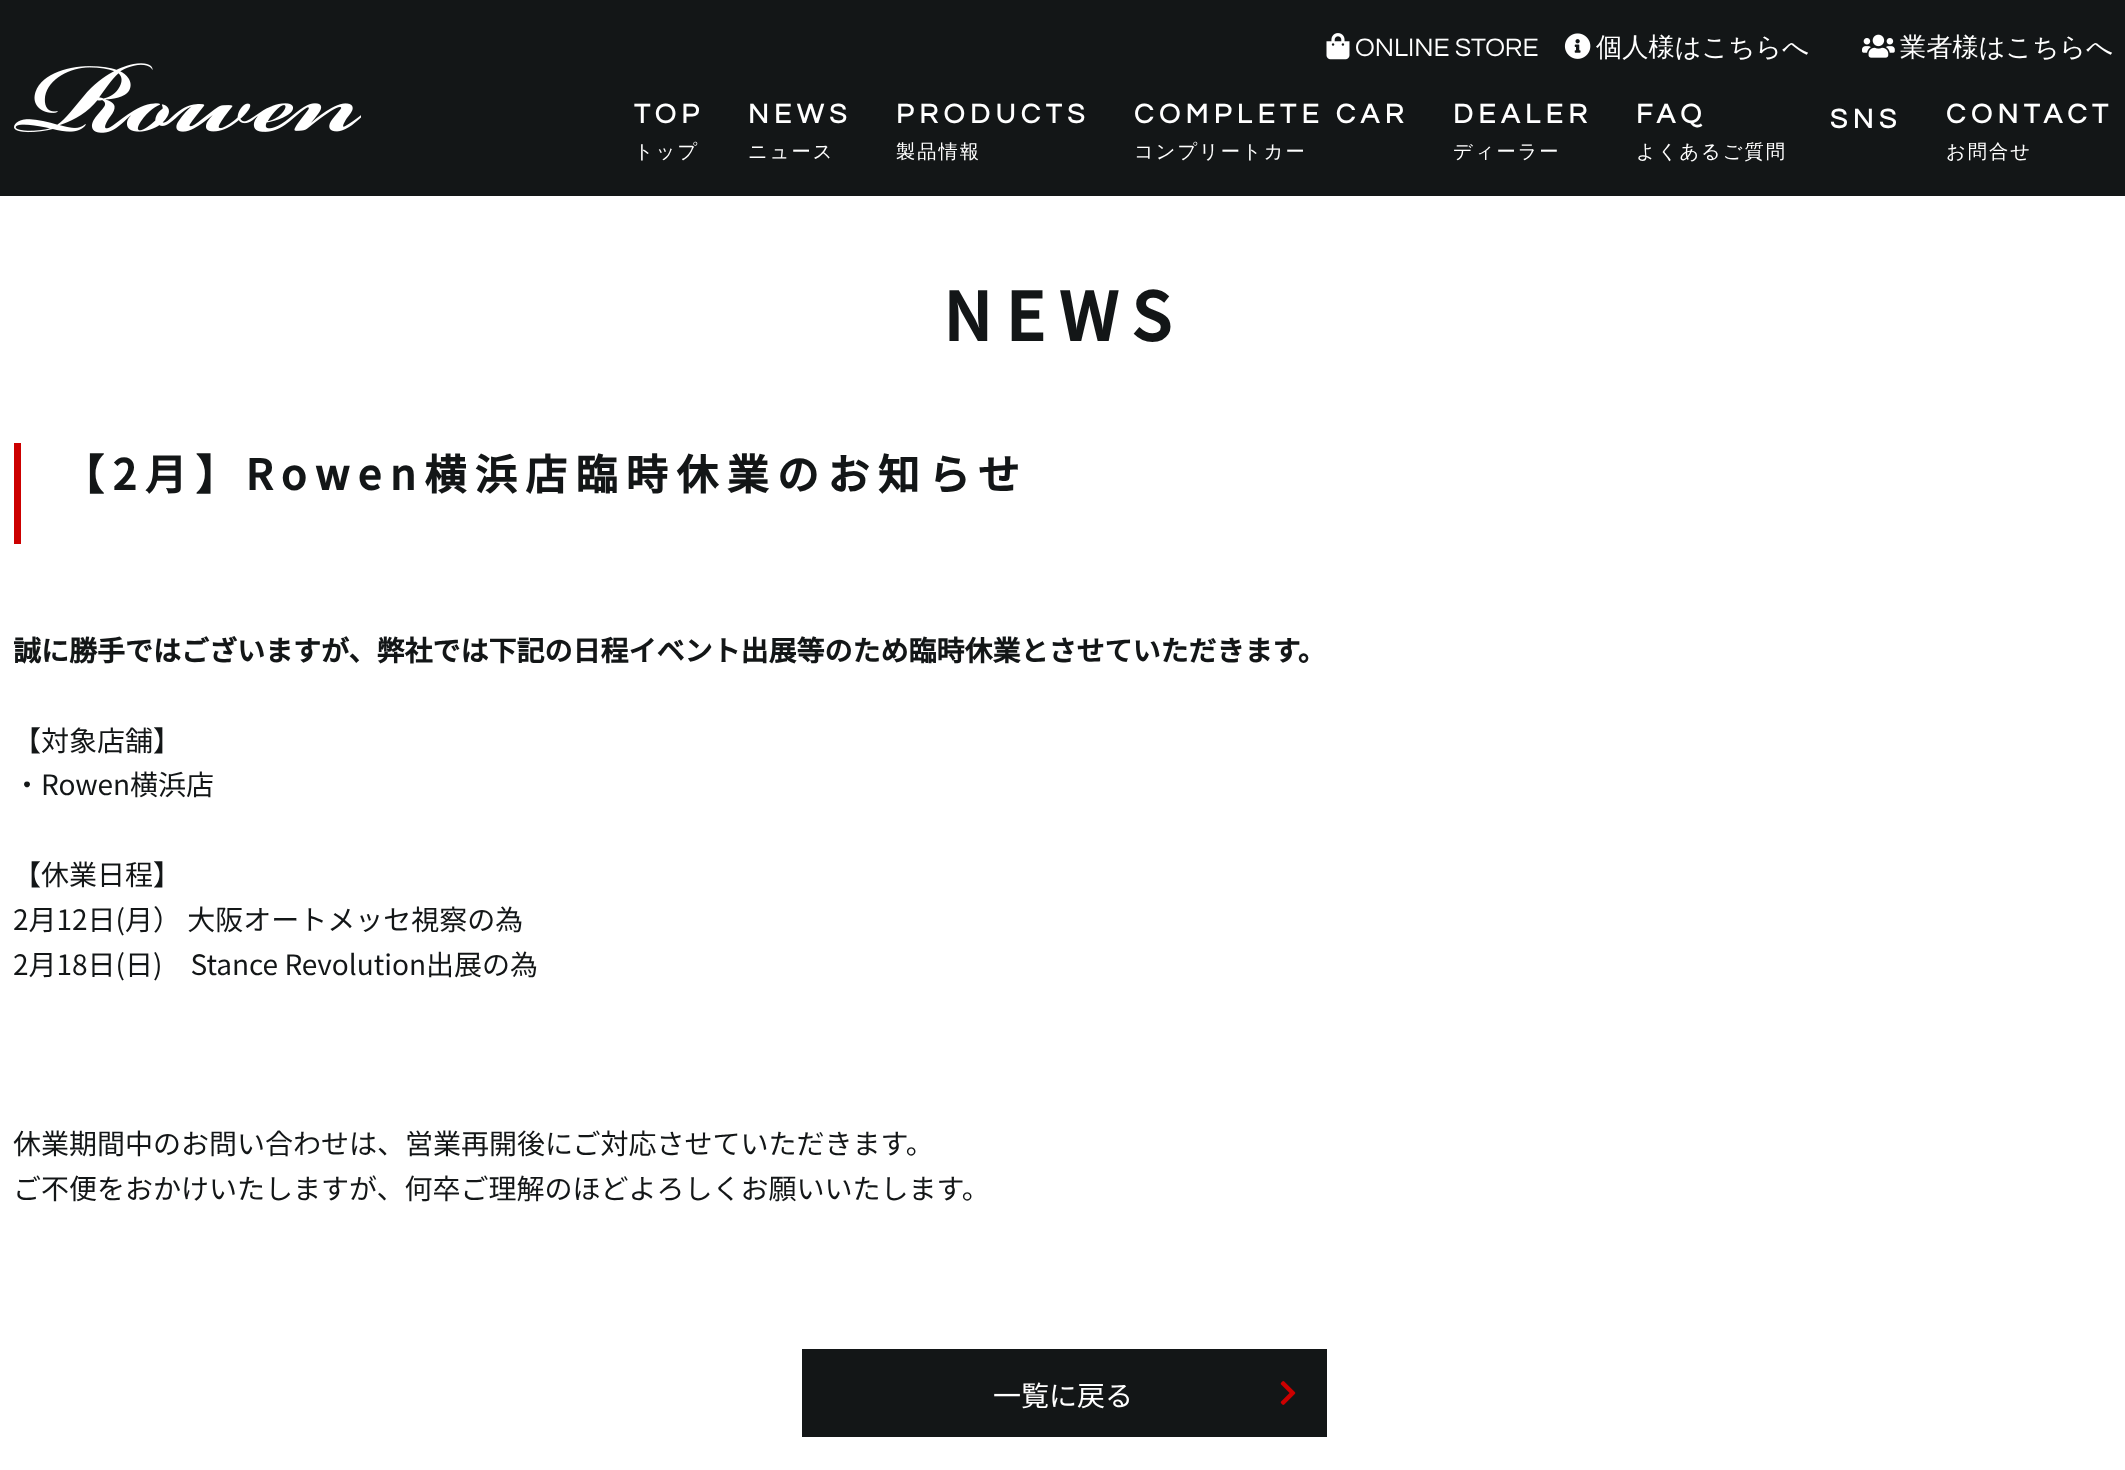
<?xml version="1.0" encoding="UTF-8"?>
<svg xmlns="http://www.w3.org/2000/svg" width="2125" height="1470">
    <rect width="100%" height="100%" fill="#FFFFFF"/>
    <rect x="0" y="0" width="2125" height="196" fill="#131617"/>
    <image x="14" y="63" width="347" height="70" href="img_01.png"/>
    <image x="1326" y="33" width="24" height="27" href="img_02.png"/>
    <text x="1355" y="56" font-family="Questrial" font-size="26.25" fill="#FFFFFF">ONLINE STORE</text>
    <image x="1564" y="33" width="27" height="26" href="img_03.png"/>
    <text x="1596" y="56" font-family="WenQuanYi Zen Hei" font-size="26.25" font-weight="500" fill="#FFFFFF">個人様はこちらへ</text>
    <image x="1862" y="34" width="33" height="24" href="img_04.png"/>
    <text x="1900" y="56" font-family="WenQuanYi Zen Hei" font-size="26.25" font-weight="500" fill="#FFFFFF">業者様はこちらへ</text>
    <text x="634" y="123" font-family="Questrial" font-size="28" font-weight="700" letter-spacing="5.6" fill="#FFFFFF">TOP</text>
    <text x="634" y="158" font-family="WenQuanYi Zen Hei" font-size="19.25" font-weight="500" letter-spacing="2" fill="#FFFFFF">トップ</text>
    <text x="748" y="123" font-family="Questrial" font-size="28" font-weight="700" letter-spacing="5.6" fill="#FFFFFF">NEWS</text>
    <text x="748" y="158" font-family="WenQuanYi Zen Hei" font-size="19.25" font-weight="500" letter-spacing="2" fill="#FFFFFF">ニュース</text>
    <text x="896" y="123" font-family="Questrial" font-size="28" font-weight="700" letter-spacing="5.6" fill="#FFFFFF">PRODUCTS</text>
    <text x="896" y="158" font-family="WenQuanYi Zen Hei" font-size="19.25" font-weight="500" letter-spacing="2" fill="#FFFFFF">製品情報</text>
    <text x="1134" y="123" font-family="Questrial" font-size="28" font-weight="700" letter-spacing="5.6" fill="#FFFFFF">COMPLETE CAR</text>
    <text x="1134" y="158" font-family="WenQuanYi Zen Hei" font-size="19.25" font-weight="500" letter-spacing="2" fill="#FFFFFF">コンプリートカー</text>
    <text x="1453" y="123" font-family="Questrial" font-size="28" font-weight="700" letter-spacing="5.6" fill="#FFFFFF">DEALER</text>
    <text x="1453" y="158" font-family="WenQuanYi Zen Hei" font-size="19.25" font-weight="500" letter-spacing="2" fill="#FFFFFF">ディーラー</text>
    <text x="1636" y="123" font-family="Questrial" font-size="28" font-weight="700" letter-spacing="5.6" fill="#FFFFFF">FAQ</text>
    <text x="1636" y="158" font-family="WenQuanYi Zen Hei" font-size="19.25" font-weight="500" letter-spacing="2" fill="#FFFFFF">よくあるご質問</text>
    <text x="1830" y="128" font-family="Questrial" font-size="28" font-weight="700" letter-spacing="5.6" fill="#FFFFFF">SNS</text>
    <text x="1946" y="123" font-family="Questrial" font-size="28" font-weight="700" letter-spacing="5.6" fill="#FFFFFF">CONTACT</text>
    <text x="1946" y="158" font-family="WenQuanYi Zen Hei" font-size="19.25" font-weight="500" letter-spacing="2" fill="#FFFFFF">お問合せ</text>
    <text x="943" y="341" font-family="Noto Sans JP" font-size="66.5" font-weight="700" letter-spacing="13.5" fill="#131617">NEWS</text>
    <rect x="14" y="443" width="7" height="101" fill="#CC0000"/>
    <text x="62" y="490" font-family="Noto Sans JP" font-size="42" font-weight="700" letter-spacing="8.4" fill="#131617">【2月】Rowen横浜店臨時休業のお知らせ</text>
    <text x="13" y="661" font-family="Noto Sans JP" font-size="28" font-weight="700" fill="#131617">誠に勝手ではございますが、弊社では下記の日程イベント出展等のため臨時休業とさせていただきます。</text>
    <text font-family="Noto Sans JP" font-size="28" fill="#131617">
        <tspan x="13" y="751">【対象店舗】</tspan>
        <tspan x="13" y="795">・Rowen横浜店</tspan>
    </text>
    <text font-family="Noto Sans JP" font-size="28" fill="#131617">
        <tspan x="13" y="885">【休業日程】</tspan>
        <tspan x="13" y="930">2月12日(月） 大阪オートメッセ視察の為</tspan>
        <tspan x="13" y="975">2月18日(日)　Stance Revolution出展の為</tspan>
    </text>
    <text font-family="Noto Sans JP" font-size="28" fill="#131617">
        <tspan x="13" y="1154">休業期間中のお問い合わせは、営業再開後にご対応させていただきます。</tspan>
        <tspan x="13" y="1199">ご不便をおかけいたしますが、何卒ご理解のほどよろしくお願いいたします。</tspan>
    </text>
    <rect x="802" y="1349" width="525" height="88" fill="#131617"/>
    <text x="993" y="1406" font-family="Noto Sans JP" font-size="28" fill="#FFFFFF">一覧に戻る</text>
    <image x="1280" y="1381" width="16" height="24" href="img_05.png"/>
</svg>
